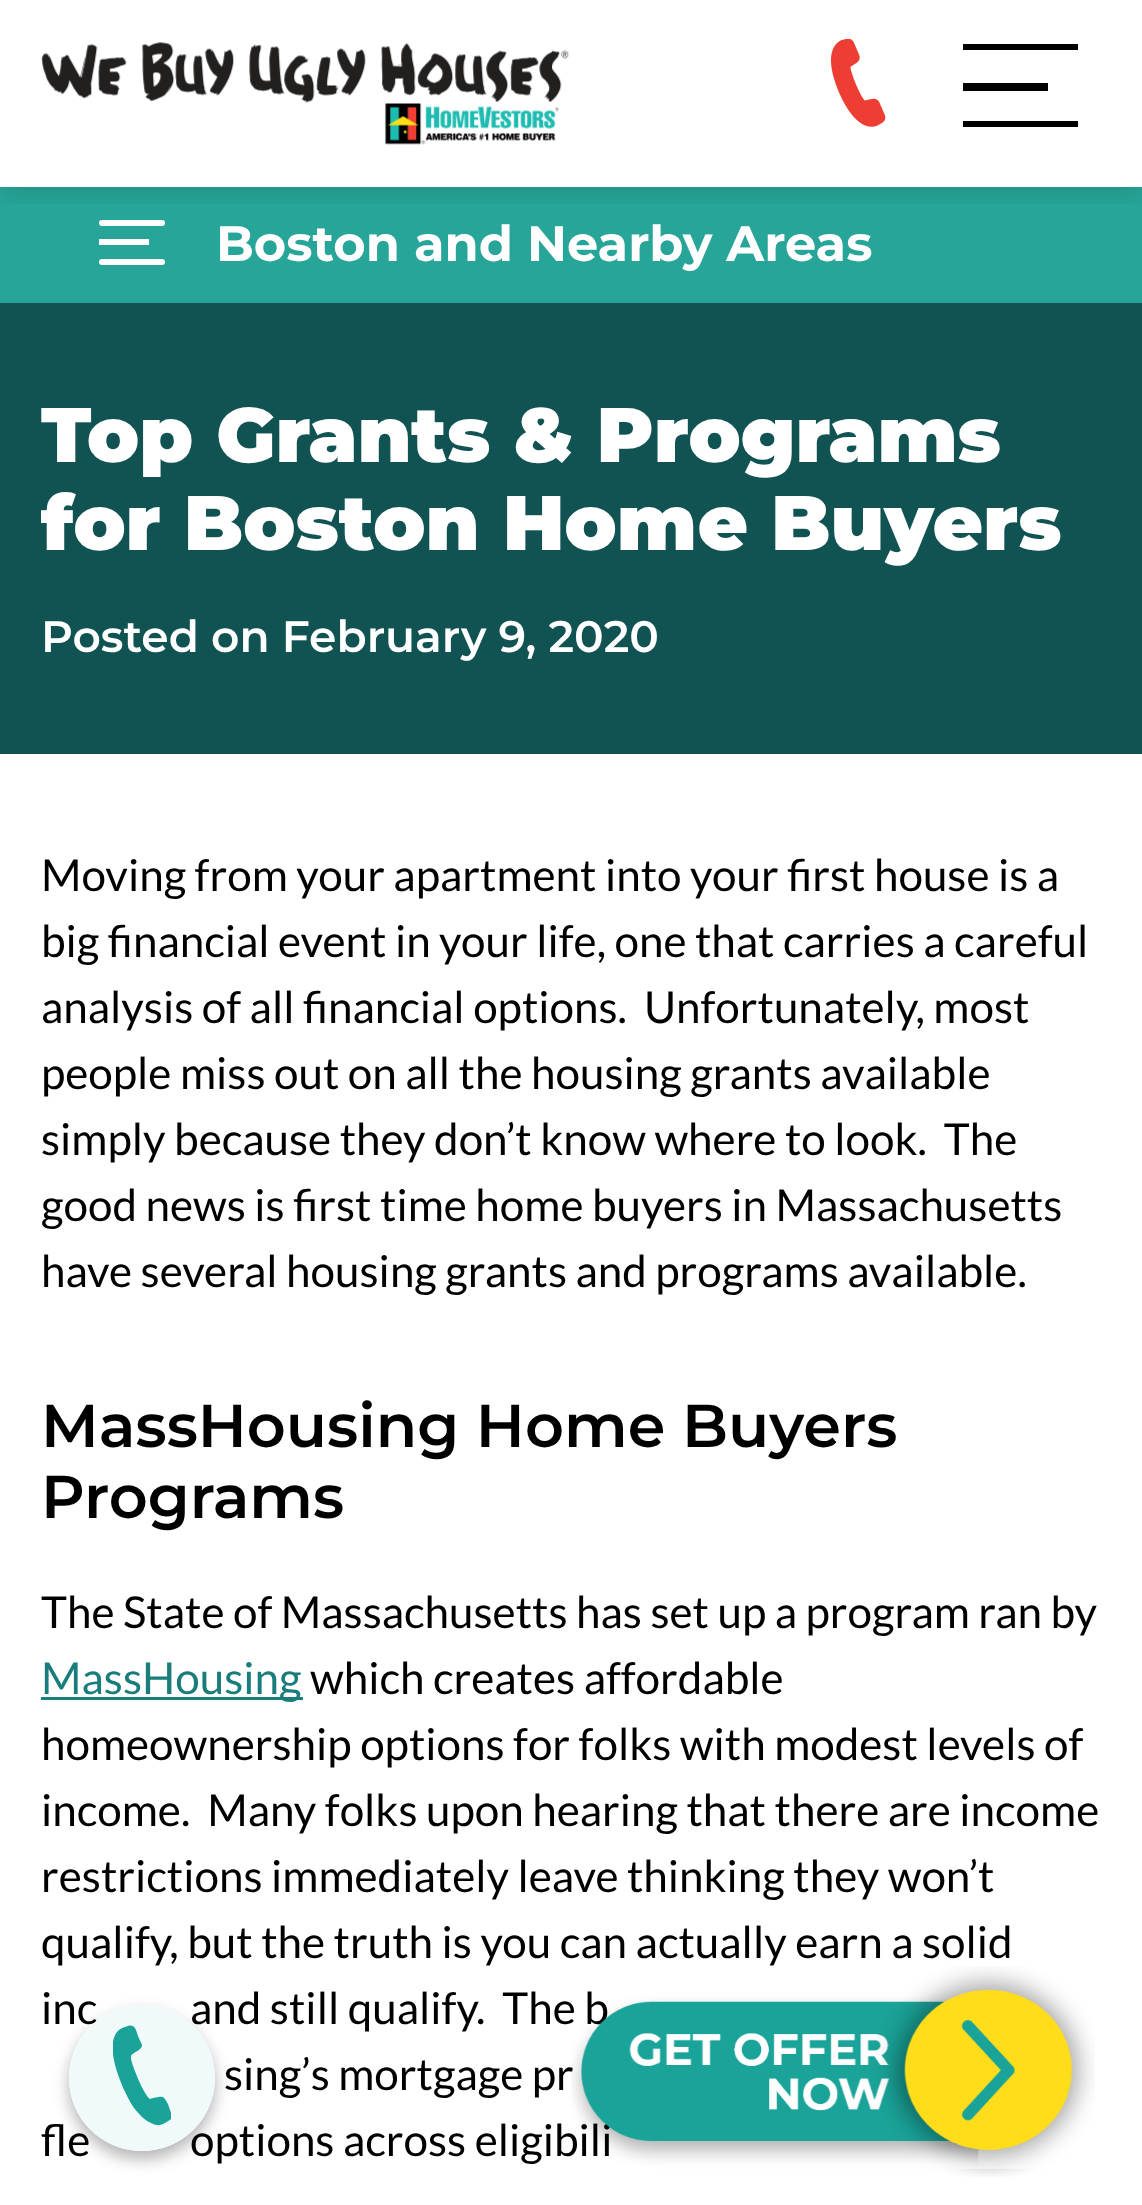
<?xml version="1.0" encoding="UTF-8"?>
<svg xmlns="http://www.w3.org/2000/svg" width="1142" height="2205">
    <defs>
        <clipPath id="clip1"><rect x="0" y="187" width="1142" height="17"/></clipPath>
        <filter id="blur1" x="-50%" y="-200%" width="200%" height="500%"><feGaussianBlur stdDeviation="11"/></filter>
        <clipPath id="clip2"><path d="M 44 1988 H 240 V 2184 H 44 Z M 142 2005 C 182.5 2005 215 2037.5 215 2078 C 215 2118.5 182.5 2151 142 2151 C 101.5 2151 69 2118.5 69 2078 C 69 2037.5 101.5 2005 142 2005 Z" clip-rule="evenodd"/></clipPath>
        <filter id="blur2" x="-50%" y="-200%" width="200%" height="500%"><feGaussianBlur stdDeviation="8"/></filter>
        <clipPath id="clip3"><rect x="113" y="2024" width="58" height="102"/></clipPath>
    </defs>
    <rect width="100%" height="100%" fill="#FFFFFF"/>
    <rect x="0" y="187" width="1142" height="116" fill="#26A598"/>
    <rect x="99" y="220" width="66" height="6" rx="3" fill="#FFFFFF"/>
    <g clip-path="url(#clip1)">
        <rect x="0" y="8" width="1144" height="187" fill="#000000" fill-opacity="0.1" filter="url(#blur1)"/>
    </g>
    <image x="41" y="42" width="528" height="103" href="img_01.png"/>
    <image x="831" y="39" width="55" height="88" href="img_02.png"/>
    <rect x="963" y="83" width="85" height="8" fill="#000000"/>
    <rect x="963" y="44" width="115" height="6" fill="#000000"/>
    <rect x="963" y="121" width="115" height="6" fill="#000000"/>
    <rect x="99" y="239" width="50" height="6" fill="#FFFFFF"/>
    <rect x="99" y="259" width="66" height="6" rx="3" fill="#FFFFFF"/>
    <text x="216" y="261" font-family="Montserrat" font-size="49.5" font-weight="700" fill="#FFFFFF">Boston and Nearby Areas</text>
    <rect x="0" y="303" width="1142" height="451" fill="#115353"/>
    <text font-family="Montserrat" font-size="77" font-weight="900" fill="#FFFFFF">
        <tspan x="41" y="462">Top Grants &amp; Programs</tspan>
        <tspan x="41" y="550">for Boston Home Buyers</tspan>
    </text>
    <text x="41" y="652" font-family="Montserrat" font-size="44" font-weight="600" fill="#FFFFFF">Posted on February 9, 2020</text>
    <text font-family="Lato" font-size="44" fill="#000000" xml:space="preserve"><tspan x="41" y="891">Moving from your apartment into your first house is a</tspan><tspan x="41" y="957">big financial event in your life, one that carries a careful</tspan><tspan x="41" y="1023">analysis of all financial options.  Unfortunately, most</tspan><tspan x="41" y="1089">people miss out on all the housing grants available</tspan><tspan x="41" y="1155">simply because they don’t know where to look.  The</tspan><tspan x="41" y="1221">good news is first time home buyers in Massachusetts</tspan><tspan x="41" y="1287">have several housing grants and programs available.</tspan></text>
    <text font-family="Montserrat" font-size="60.5" font-weight="600" fill="#000000">
        <tspan x="41" y="1447">MassHousing Home Buyers</tspan>
        <tspan x="41" y="1518">Programs</tspan>
    </text>
    <text x="41" y="1628" font-family="Lato" font-size="44" fill="#000000">The State of Massachusetts has set up a program ran by</text>
    <rect x="41" y="1697" width="262" height="3" fill="#197D7B"/>
    <text x="41" y="1694" font-family="Lato" font-size="44" fill="#197D7B">MassHousing</text>
    <text x="310" y="1694" font-family="Lato" font-size="44" fill="#000000">which creates affordable</text>
    <text font-family="Lato" font-size="44" fill="#000000" xml:space="preserve"><tspan x="41" y="1760">homeownership options for folks with modest levels of</tspan><tspan x="41" y="1826">income.  Many folks upon hearing that there are income</tspan><tspan x="41" y="1892">restrictions immediately leave thinking they won’t</tspan><tspan x="41" y="1958">qualify, but the truth is you can actually earn a solid</tspan><tspan x="41" y="2024">inc</tspan></text>
    <text x="190" y="2024" font-family="Lato" font-size="44" fill="#000000" xml:space="preserve">and still qualify.  The b</text>
    <text x="224" y="2090" font-family="Lato" font-size="44" fill="#000000">sing’s mortgage pr</text>
    <text x="41" y="2156" font-family="Lato" font-size="44" fill="#000000">fle</text>
    <text x="190" y="2156" font-family="Lato" font-size="44" fill="#000000">options across eligibili</text>
    <g clip-path="url(#clip2)">
        <rect x="69" y="2013" width="146" height="146" rx="73" fill="#000000" fill-opacity="0.3" filter="url(#blur2)"/>
    </g>
    <circle cx="142" cy="2078" r="73" fill="#F1FAFA"/>
    <g clip-path="url(#clip3)">
        <path d="M 131 2059 C 131 2055 131 2055 134 2053 C 137 2051 142 2049 142 2045 L 138 2036 C 136 2030 135 2024 128 2026 L 122 2028 C 99 2040 124 2093 134 2108 C 139 2114 144 2120 151 2123 C 159 2127 162 2125 168 2121 C 170 2120 172 2119 172 2116 L 168 2104 C 163 2095 163 2096 153 2098 L 150 2099 C 144 2095 133 2068 131 2059" fill="#1AA398"/>
    </g>
    <image x="571" y="1966" width="524" height="211" href="img_03.png"/>
</svg>
